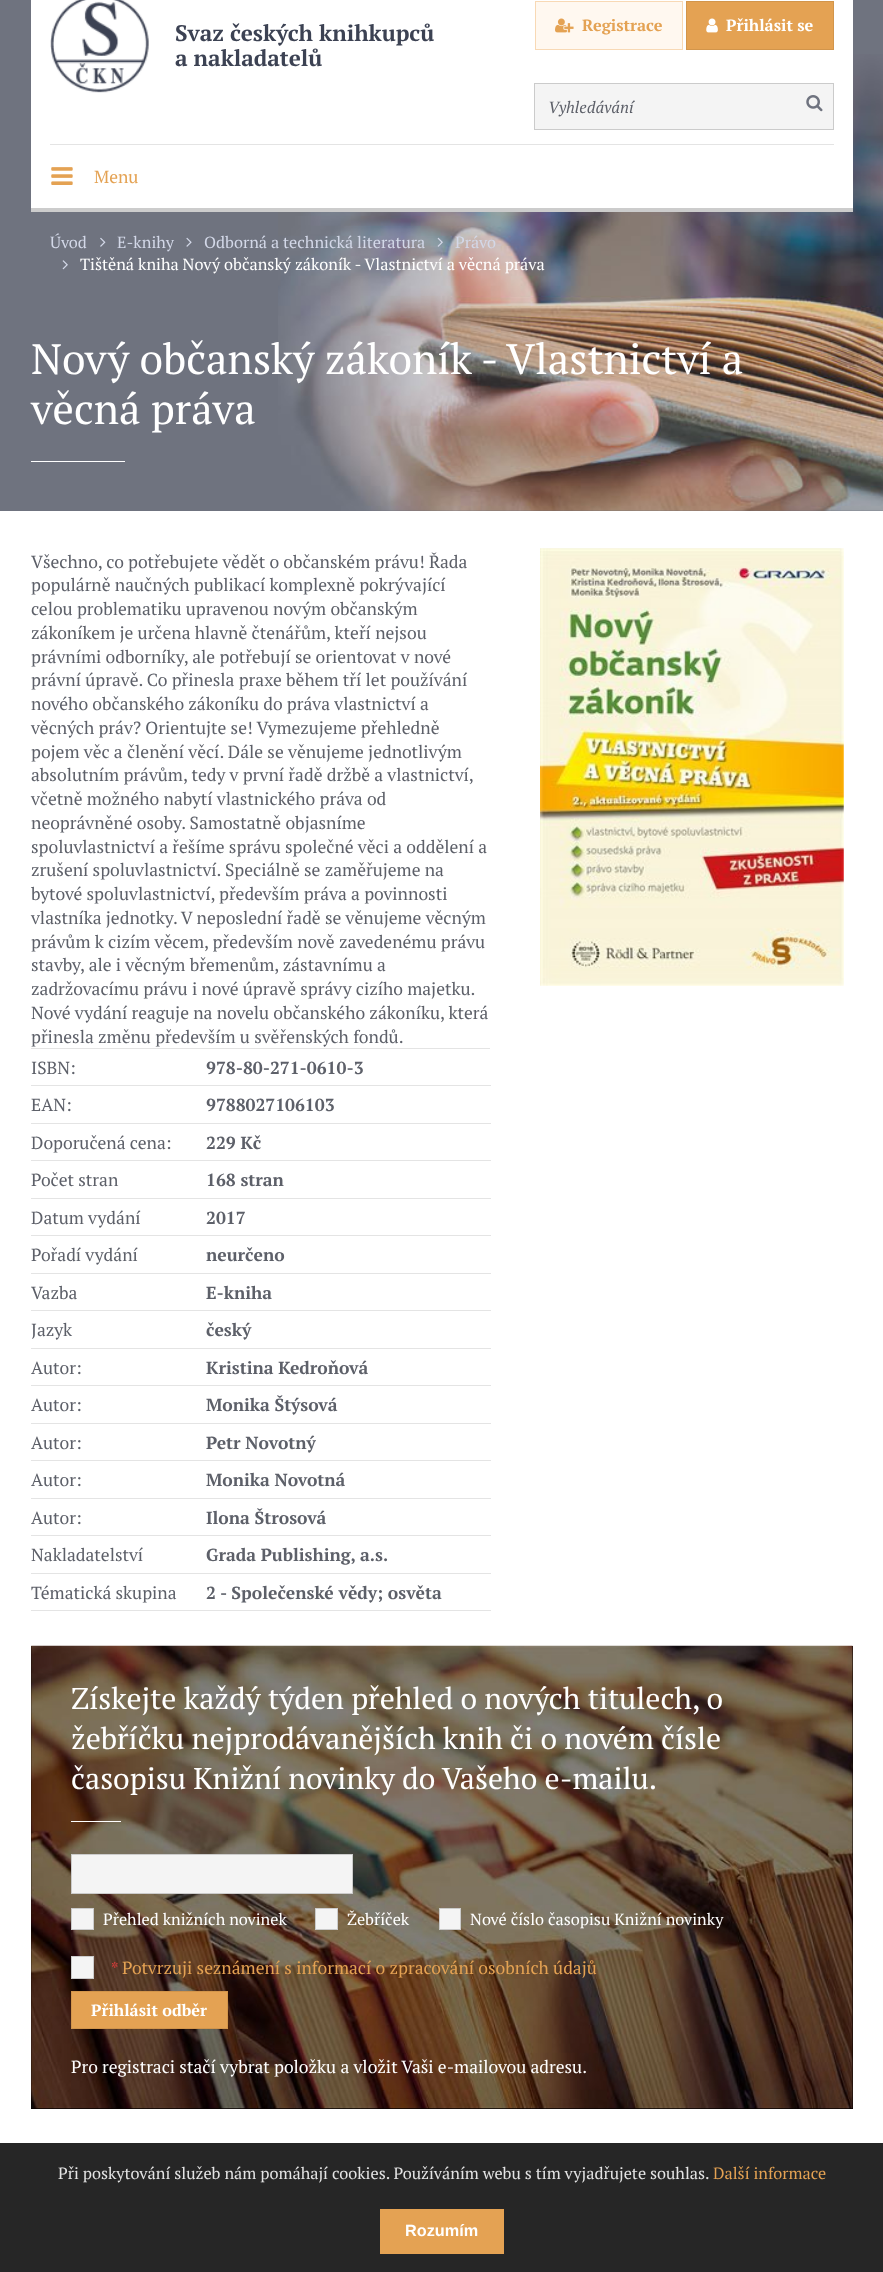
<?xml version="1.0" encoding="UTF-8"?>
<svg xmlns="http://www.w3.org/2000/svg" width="883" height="2272">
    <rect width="100%" height="100%" fill="#FFFFFF"/>
    <rect x="0" y="0" width="883" height="511" fill="#6F737F"/>
    <image x="278" y="54" width="605" height="457" href="img_01.png"/>
    <rect x="31" y="0" width="822" height="208" fill="#FFFFFF"/>
    <rect x="31" y="208" width="822" height="4" fill="#CCCCCC"/>
    <image x="50" y="0" width="99" height="93" href="img_02.png"/>
    <text font-family="PT Serif" font-size="22.5" font-weight="700" fill="#3C4253">
        <tspan x="175" y="41">Svaz českých knihkupců</tspan>
        <tspan x="175" y="66">a nakladatelů</tspan>
    </text>
    <rect x="535.5" y="1.5" width="147" height="48" fill="#FFF8F0" stroke="#F8D9B5"/>
    <image x="555" y="18" width="19" height="15" href="img_03.png"/>
    <text x="582" y="31" font-family="PT Serif" font-size="16.25" font-weight="700" fill="#E4A253">Registrace</text>
    <rect x="686.5" y="1.5" width="147" height="48" fill="#E4A253" stroke="#D2954B"/>
    <image x="706" y="18" width="12" height="15" href="img_04.png"/>
    <text x="726" y="31" font-family="PT Serif" font-size="16.25" font-weight="700" fill="#FFFFFF">Přihlásit se</text>
    <rect x="534.5" y="83.5" width="299" height="46" fill="#F4F4F4" stroke="#CBCBCB"/>
    <text x="548" y="113" font-family="PT Serif" font-size="16.25" font-style="italic" fill="#5D6069">Vyhledávání</text>
    <image x="806" y="95" width="17" height="17" href="img_05.png"/>
    <rect x="50" y="144" width="784" height="1" fill="#E4E4E4"/>
    <image x="51" y="167" width="22" height="18" href="img_06.png"/>
    <text x="94" y="183" font-family="PT Serif" font-size="17.5" fill="#E4A253">Menu</text>
    <text x="50" y="248" font-family="PT Serif" font-size="16.25" fill="#D3D8E8">Úvod</text>
    <image x="100" y="237" width="6" height="10" href="img_07.png"/>
    <text x="117" y="248" font-family="PT Serif" font-size="16.25" fill="#D3D8E8">E-knihy</text>
    <image x="186" y="237" width="6" height="10" href="img_08.png"/>
    <text x="204" y="248" font-family="PT Serif" font-size="16.25" fill="#D3D8E8">Odborná a technická literatura</text>
    <image x="437" y="237" width="6" height="10" href="img_09.png"/>
    <text x="455" y="248" font-family="PT Serif" font-size="16.25" fill="#D3D8E8">Právo</text>
    <image x="62" y="260" width="6" height="10" href="img_10.png"/>
    <text x="80" y="270" font-family="PT Serif" font-size="16.25" fill="#FFFFFF">Tištěná kniha Nový občanský zákoník - Vlastnictví a věcná práva</text>
    <text font-family="PT Serif" font-size="42.5" fill="#FFFFFF">
        <tspan x="31" y="374">Nový občanský zákoník - Vlastnictví a</tspan>
        <tspan x="31" y="424">věcná práva</tspan>
    </text>
    <rect x="31" y="461" width="94" height="1" fill="#FFFFFF"/>
    <text font-family="PT Serif" font-size="17.5" fill="#5D6069">
        <tspan x="31" y="568">Všechno, co potřebujete vědět o občanském právu! Řada</tspan>
        <tspan x="31" y="591">populárně naučných publikací komplexně pokrývající</tspan>
        <tspan x="31" y="615">celou problematiku upravenou novým občanským</tspan>
        <tspan x="31" y="639">zákoníkem je určena hlavně čtenářům, kteří nejsou</tspan>
        <tspan x="31" y="663">právními odborníky, ale potřebují se orientovat v nové</tspan>
        <tspan x="31" y="686">právní úpravě. Co přinesla praxe během tří let používání</tspan>
        <tspan x="31" y="710">nového občanského zákoníku do práva vlastnictví a</tspan>
        <tspan x="31" y="734">věcných práv? Orientujte se! Vymezujeme přehledně</tspan>
        <tspan x="31" y="758">pojem věc a členění věcí. Dále se věnujeme jednotlivým</tspan>
        <tspan x="31" y="781">absolutním právům, tedy v první řadě držbě a vlastnictví,</tspan>
        <tspan x="31" y="805">včetně možného nabytí vlastnického práva od</tspan>
        <tspan x="31" y="829">neoprávněné osoby. Samostatně objasníme</tspan>
        <tspan x="31" y="853">spoluvlastnictví a řešíme správu společné věci a oddělení a</tspan>
        <tspan x="31" y="876">zrušení spoluvlastnictví. Speciálně se zaměřujeme na</tspan>
        <tspan x="31" y="900">bytové spoluvlastnictví, především práva a povinnosti</tspan>
        <tspan x="31" y="924">vlastníka jednotky. V neposlední řadě se věnujeme věcným</tspan>
        <tspan x="31" y="948">právům k cizím věcem, především nově zavedenému právu</tspan>
        <tspan x="31" y="971">stavby, ale i věcným břemenům, zástavnímu a</tspan>
        <tspan x="31" y="995">zadržovacímu právu i nové úpravě správy cizího majetku.</tspan>
        <tspan x="31" y="1019">Nové vydání reaguje na novelu občanského zákoníku, která</tspan>
        <tspan x="31" y="1043">přinesla změnu především u svěřenských fondů.</tspan>
    </text>
    <rect x="31" y="1048" width="459" height="1" fill="#E4E4E4"/>
    <text x="31" y="1074" font-family="PT Serif" font-size="17.5" fill="#5D6069">ISBN:</text>
    <rect x="31" y="1085" width="460" height="1" fill="#E4E4E4"/>
    <text x="206" y="1074" font-family="PT Serif" font-size="17.5" font-weight="700" fill="#5D6069">978-80-271-0610-3</text>
    <text x="31" y="1111" font-family="PT Serif" font-size="17.5" fill="#5D6069">EAN:</text>
    <rect x="31" y="1123" width="460" height="1" fill="#E4E4E4"/>
    <text x="206" y="1111" font-family="PT Serif" font-size="17.5" font-weight="700" fill="#5D6069">9788027106103</text>
    <text x="31" y="1149" font-family="PT Serif" font-size="17.5" fill="#5D6069">Doporučená cena:</text>
    <rect x="31" y="1160" width="460" height="1" fill="#E4E4E4"/>
    <text x="206" y="1149" font-family="PT Serif" font-size="17.5" font-weight="700" fill="#5D6069">229 Kč</text>
    <text x="31" y="1186" font-family="PT Serif" font-size="17.5" fill="#5D6069">Počet stran</text>
    <rect x="31" y="1198" width="460" height="1" fill="#E4E4E4"/>
    <text x="206" y="1186" font-family="PT Serif" font-size="17.5" font-weight="700" fill="#5D6069">168 stran</text>
    <text x="31" y="1224" font-family="PT Serif" font-size="17.5" fill="#5D6069">Datum vydání</text>
    <rect x="31" y="1235" width="460" height="1" fill="#E4E4E4"/>
    <text x="206" y="1224" font-family="PT Serif" font-size="17.5" font-weight="700" fill="#5D6069">2017</text>
    <text x="31" y="1261" font-family="PT Serif" font-size="17.5" fill="#5D6069">Pořadí vydání</text>
    <rect x="31" y="1273" width="460" height="1" fill="#E4E4E4"/>
    <text x="206" y="1261" font-family="PT Serif" font-size="17.5" font-weight="700" fill="#5D6069">neurčeno</text>
    <text x="31" y="1299" font-family="PT Serif" font-size="17.5" fill="#5D6069">Vazba</text>
    <rect x="31" y="1310" width="460" height="1" fill="#E4E4E4"/>
    <text x="206" y="1299" font-family="PT Serif" font-size="17.5" font-weight="700" fill="#5D6069">E-kniha</text>
    <text x="31" y="1336" font-family="PT Serif" font-size="17.5" fill="#5D6069">Jazyk</text>
    <rect x="31" y="1348" width="460" height="1" fill="#E4E4E4"/>
    <text x="206" y="1336" font-family="PT Serif" font-size="17.5" font-weight="700" fill="#5D6069">český</text>
    <text x="31" y="1374" font-family="PT Serif" font-size="17.5" fill="#5D6069">Autor:</text>
    <rect x="31" y="1385" width="460" height="1" fill="#E4E4E4"/>
    <text x="206" y="1374" font-family="PT Serif" font-size="17.5" font-weight="700" fill="#5D6069">Kristina Kedroňová</text>
    <text x="31" y="1411" font-family="PT Serif" font-size="17.5" fill="#5D6069">Autor:</text>
    <rect x="31" y="1423" width="460" height="1" fill="#E4E4E4"/>
    <text x="206" y="1411" font-family="PT Serif" font-size="17.5" font-weight="700" fill="#5D6069">Monika Štýsová</text>
    <text x="31" y="1449" font-family="PT Serif" font-size="17.5" fill="#5D6069">Autor:</text>
    <rect x="31" y="1460" width="460" height="1" fill="#E4E4E4"/>
    <text x="206" y="1449" font-family="PT Serif" font-size="17.5" font-weight="700" fill="#5D6069">Petr Novotný</text>
    <text x="31" y="1486" font-family="PT Serif" font-size="17.5" fill="#5D6069">Autor:</text>
    <rect x="31" y="1498" width="460" height="1" fill="#E4E4E4"/>
    <text x="206" y="1486" font-family="PT Serif" font-size="17.5" font-weight="700" fill="#5D6069">Monika Novotná</text>
    <text x="31" y="1524" font-family="PT Serif" font-size="17.5" fill="#5D6069">Autor:</text>
    <rect x="31" y="1535" width="460" height="1" fill="#E4E4E4"/>
    <text x="206" y="1524" font-family="PT Serif" font-size="17.5" font-weight="700" fill="#5D6069">Ilona Štrosová</text>
    <text x="31" y="1561" font-family="PT Serif" font-size="17.5" fill="#5D6069">Nakladatelství</text>
    <rect x="31" y="1573" width="460" height="1" fill="#E4E4E4"/>
    <text x="206" y="1561" font-family="PT Serif" font-size="17.5" font-weight="700" fill="#5D6069">Grada Publishing, a.s.</text>
    <text x="31" y="1599" font-family="PT Serif" font-size="17.5" fill="#5D6069">Tématická skupina</text>
    <rect x="31" y="1610" width="460" height="1" fill="#E4E4E4"/>
    <text x="206" y="1599" font-family="PT Serif" font-size="17.5" font-weight="700" fill="#5D6069">2 - Společenské vědy; osvěta</text>
    <image x="540" y="548" width="304" height="438" href="img_11.png"/>
    <rect x="31" y="1646" width="822" height="463" fill="#060100"/>
    <image x="31" y="1645" width="822" height="464" href="img_12.png"/>
    <text font-family="PT Serif" font-size="30" fill="#FFFFFF">
        <tspan x="71" y="1709">Získejte každý týden přehled o nových titulech, o</tspan>
        <tspan x="71" y="1749">žebříčku nejprodávanějších knih či o novém čísle</tspan>
        <tspan x="71" y="1789">časopisu Knižní novinky do Vašeho e-mailu.</tspan>
    </text>
    <rect x="71" y="1821" width="50" height="1" fill="#FFFFFF"/>
    <rect x="71.5" y="1854.5" width="281" height="39" fill="#F4F4F4" stroke="#CBCBCB"/>
    <rect x="71.5" y="1908.5" width="22" height="21" fill="#F4F4F4" stroke="#CBCBCB"/>
    <text x="103" y="1925" font-family="PT Serif" font-size="16.25" fill="#FFFFFF">Přehled knižních novinek</text>
    <rect x="315.5" y="1908.5" width="22" height="21" fill="#F4F4F4" stroke="#CBCBCB"/>
    <text x="347" y="1925" font-family="PT Serif" font-size="16.25" fill="#FFFFFF">Žebříček</text>
    <rect x="439.5" y="1908.5" width="21" height="21" fill="#F4F4F4" stroke="#CBCBCB"/>
    <text x="470" y="1925" font-family="PT Serif" font-size="16.25" fill="#FFFFFF">Nové číslo časopisu Knižní novinky</text>
    <rect x="71.5" y="1956.5" width="22" height="22" fill="#F4F4F4" stroke="#CBCBCB"/>
    <text x="111" y="1974" font-family="PT Serif" font-size="16.25" fill="#E93C3C">*</text>
    <text x="122" y="1974" font-family="PT Serif" font-size="17.5" fill="#E4A253">Potvrzuji seznámení s informací o zpracování osobních údajů</text>
    <rect x="71.5" y="1991.5" width="156" height="37" fill="#E4A253" stroke="#D2954B"/>
    <text x="91" y="2016" font-family="PT Serif" font-size="16.25" font-weight="700" fill="#FFFFFF">Přihlásit odběr</text>
    <text x="71" y="2073" font-family="PT Serif" font-size="17.5" fill="#FFFFFF">Pro registraci stačí vybrat položku a vložit Vaši e-mailovou adresu.</text>
    <rect x="0" y="2143" width="883" height="129" fill="#000000" fill-opacity="0.85"/>
    <text x="58" y="2179" font-family="PT Serif" font-size="16.25" fill="#E4E4E4">Při poskytování služeb nám pomáhají cookies. Používáním webu s tím vyjadřujete souhlas.</text>
    <text x="713" y="2179" font-family="PT Serif" font-size="16.25" fill="#E4A253">Další informace</text>
    <rect x="380" y="2209" width="124" height="45" fill="#E4A253"/>
    <text x="405" y="2236" font-family="Liberation Sans" font-size="16.25" font-weight="700" fill="#FFFFFF">Rozumím</text>
</svg>
